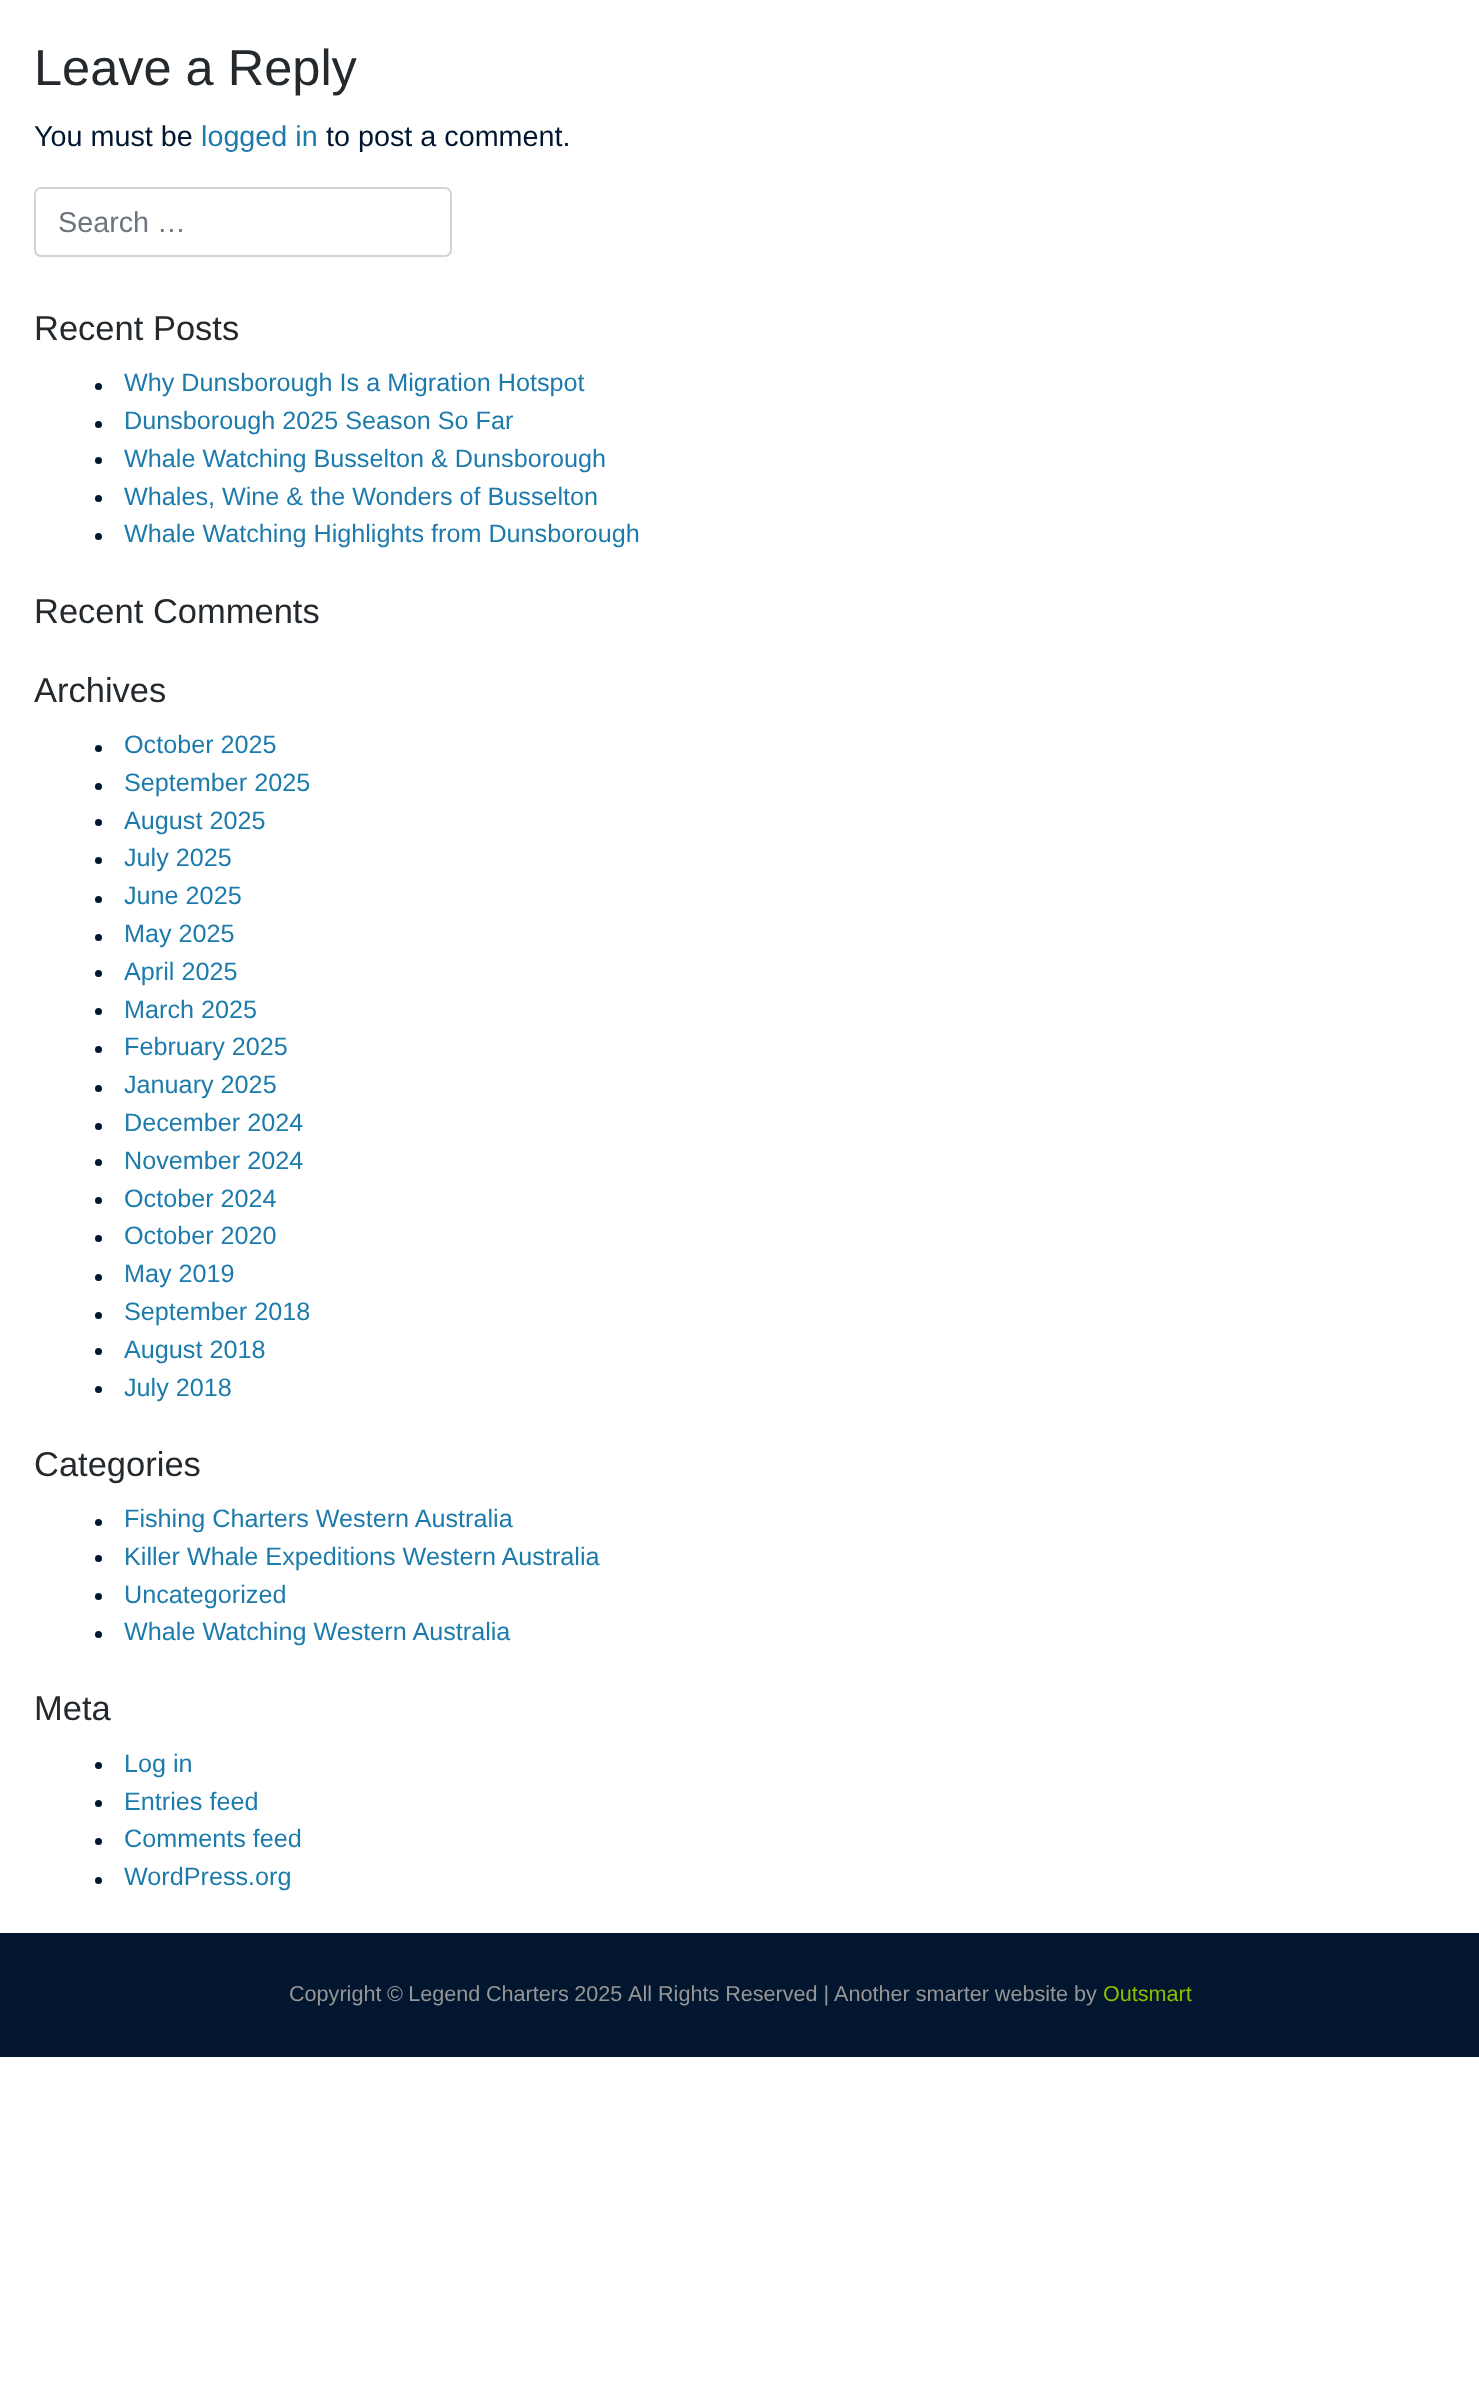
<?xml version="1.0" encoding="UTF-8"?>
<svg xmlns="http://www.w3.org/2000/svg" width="1479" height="2405">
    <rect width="100%" height="100%" fill="#FFFFFF"/>
    <text x="34" y="85" font-family="Liberation Sans" font-size="50.5" fill="#24292E">Leave a Reply</text>
    <text x="34" y="146" font-family="Liberation Sans" font-size="28.75" fill="#011730">You must be</text>
    <text x="201" y="146" font-family="Liberation Sans" font-size="28.75" fill="#1D7BAC">logged in</text>
    <text x="326" y="146" font-family="Liberation Sans" font-size="28.75" fill="#011730">to post a comment.</text>
    <rect x="35" y="188" width="416" height="68" rx="6" fill="none" stroke="#CED4DA" stroke-width="2"/>
    <text x="58" y="232" font-family="Liberation Sans" font-size="28.75" fill="#6C757D">Search …</text>
    <text x="34" y="340" font-family="Liberation Sans" font-size="34.5" fill="#24292E">Recent Posts</text>
    <circle cx="98.5" cy="386.5" r="3.5" fill="#011730"/>
    <text x="124" y="391" font-family="Liberation Sans" font-size="25.2" fill="#1D7BAC">Why Dunsborough Is a Migration Hotspot</text>
    <circle cx="98.5" cy="424.5" r="3.5" fill="#011730"/>
    <text x="124" y="429" font-family="Liberation Sans" font-size="25.2" fill="#1D7BAC">Dunsborough 2025 Season So Far</text>
    <circle cx="98.5" cy="460.5" r="3.5" fill="#011730"/>
    <text x="124" y="467" font-family="Liberation Sans" font-size="25.2" fill="#1D7BAC">Whale Watching Busselton &amp; Dunsborough</text>
    <circle cx="98.5" cy="498.5" r="3.5" fill="#011730"/>
    <text x="124" y="505" font-family="Liberation Sans" font-size="25.2" fill="#1D7BAC">Whales, Wine &amp; the Wonders of Busselton</text>
    <circle cx="98.5" cy="536.5" r="3.5" fill="#011730"/>
    <text x="124" y="542" font-family="Liberation Sans" font-size="25.2" fill="#1D7BAC">Whale Watching Highlights from Dunsborough</text>
    <text x="34" y="623" font-family="Liberation Sans" font-size="34.5" fill="#24292E">Recent Comments</text>
    <text x="34" y="702" font-family="Liberation Sans" font-size="34.5" fill="#24292E">Archives</text>
    <circle cx="98.5" cy="748.5" r="3.5" fill="#011730"/>
    <text x="124" y="753" font-family="Liberation Sans" font-size="25.2" fill="#1D7BAC">October 2025</text>
    <circle cx="98.5" cy="786.5" r="3.5" fill="#011730"/>
    <text x="124" y="791" font-family="Liberation Sans" font-size="25.2" fill="#1D7BAC">September 2025</text>
    <circle cx="98.5" cy="822.5" r="3.5" fill="#011730"/>
    <text x="124" y="829" font-family="Liberation Sans" font-size="25.2" fill="#1D7BAC">August 2025</text>
    <circle cx="98.5" cy="860.5" r="3.5" fill="#011730"/>
    <text x="124" y="866" font-family="Liberation Sans" font-size="25.2" fill="#1D7BAC">July 2025</text>
    <circle cx="98.5" cy="899.5" r="3.5" fill="#011730"/>
    <text x="124" y="904" font-family="Liberation Sans" font-size="25.2" fill="#1D7BAC">June 2025</text>
    <circle cx="98.5" cy="937.5" r="3.5" fill="#011730"/>
    <text x="124" y="942" font-family="Liberation Sans" font-size="25.2" fill="#1D7BAC">May 2025</text>
    <circle cx="98.5" cy="973.5" r="3.5" fill="#011730"/>
    <text x="124" y="980" font-family="Liberation Sans" font-size="25.2" fill="#1D7BAC">April 2025</text>
    <circle cx="98.5" cy="1011.5" r="3.5" fill="#011730"/>
    <text x="124" y="1018" font-family="Liberation Sans" font-size="25.2" fill="#1D7BAC">March 2025</text>
    <circle cx="98.5" cy="1049.5" r="3.5" fill="#011730"/>
    <text x="124" y="1055" font-family="Liberation Sans" font-size="25.2" fill="#1D7BAC">February 2025</text>
    <circle cx="98.5" cy="1088.5" r="3.5" fill="#011730"/>
    <text x="124" y="1093" font-family="Liberation Sans" font-size="25.2" fill="#1D7BAC">January 2025</text>
    <circle cx="98.5" cy="1126.5" r="3.5" fill="#011730"/>
    <text x="124" y="1131" font-family="Liberation Sans" font-size="25.2" fill="#1D7BAC">December 2024</text>
    <circle cx="98.5" cy="1162.5" r="3.5" fill="#011730"/>
    <text x="124" y="1169" font-family="Liberation Sans" font-size="25.2" fill="#1D7BAC">November 2024</text>
    <circle cx="98.5" cy="1200.5" r="3.5" fill="#011730"/>
    <text x="124" y="1207" font-family="Liberation Sans" font-size="25.2" fill="#1D7BAC">October 2024</text>
    <circle cx="98.5" cy="1238.5" r="3.5" fill="#011730"/>
    <text x="124" y="1244" font-family="Liberation Sans" font-size="25.2" fill="#1D7BAC">October 2020</text>
    <circle cx="98.5" cy="1277.5" r="3.5" fill="#011730"/>
    <text x="124" y="1282" font-family="Liberation Sans" font-size="25.2" fill="#1D7BAC">May 2019</text>
    <circle cx="98.5" cy="1315.5" r="3.5" fill="#011730"/>
    <text x="124" y="1320" font-family="Liberation Sans" font-size="25.2" fill="#1D7BAC">September 2018</text>
    <circle cx="98.5" cy="1351.5" r="3.5" fill="#011730"/>
    <text x="124" y="1358" font-family="Liberation Sans" font-size="25.2" fill="#1D7BAC">August 2018</text>
    <circle cx="98.5" cy="1389.5" r="3.5" fill="#011730"/>
    <text x="124" y="1396" font-family="Liberation Sans" font-size="25.2" fill="#1D7BAC">July 2018</text>
    <text x="34" y="1476" font-family="Liberation Sans" font-size="34.5" fill="#24292E">Categories</text>
    <circle cx="98.5" cy="1522.5" r="3.5" fill="#011730"/>
    <text x="124" y="1527" font-family="Liberation Sans" font-size="25.2" fill="#1D7BAC">Fishing Charters Western Australia</text>
    <circle cx="98.5" cy="1558.5" r="3.5" fill="#011730"/>
    <text x="124" y="1565" font-family="Liberation Sans" font-size="25.2" fill="#1D7BAC">Killer Whale Expeditions Western Australia</text>
    <circle cx="98.5" cy="1596.5" r="3.5" fill="#011730"/>
    <text x="124" y="1603" font-family="Liberation Sans" font-size="25.2" fill="#1D7BAC">Uncategorized</text>
    <circle cx="98.5" cy="1634.5" r="3.5" fill="#011730"/>
    <text x="124" y="1640" font-family="Liberation Sans" font-size="25.2" fill="#1D7BAC">Whale Watching Western Australia</text>
    <text x="34" y="1720" font-family="Liberation Sans" font-size="34.5" fill="#24292E">Meta</text>
    <circle cx="98.5" cy="1765.5" r="3.5" fill="#011730"/>
    <text x="124" y="1772" font-family="Liberation Sans" font-size="25.2" fill="#1D7BAC">Log in</text>
    <circle cx="98.5" cy="1803.5" r="3.5" fill="#011730"/>
    <text x="124" y="1810" font-family="Liberation Sans" font-size="25.2" fill="#1D7BAC">Entries feed</text>
    <circle cx="98.5" cy="1841.5" r="3.5" fill="#011730"/>
    <text x="124" y="1847" font-family="Liberation Sans" font-size="25.2" fill="#1D7BAC">Comments feed</text>
    <circle cx="98.5" cy="1880.5" r="3.5" fill="#011730"/>
    <text x="124" y="1885" font-family="Liberation Sans" font-size="25.2" fill="#1D7BAC">WordPress.org</text>
    <rect x="0" y="1933" width="1479" height="124" fill="#02172F"/>
    <text x="289" y="2001" word-spacing="-0.5" font-family="Liberation Sans" font-size="21.6" fill="#969696">Copyright © Legend Charters 2025</text>
    <text x="628" y="2001" font-family="Liberation Sans" font-size="21.6" fill="#969696">All Rights Reserved | Another smarter website by</text>
    <text x="1103" y="2001" font-family="Liberation Sans" font-size="21.6" fill="#8EBD00">Outsmart</text>
</svg>
